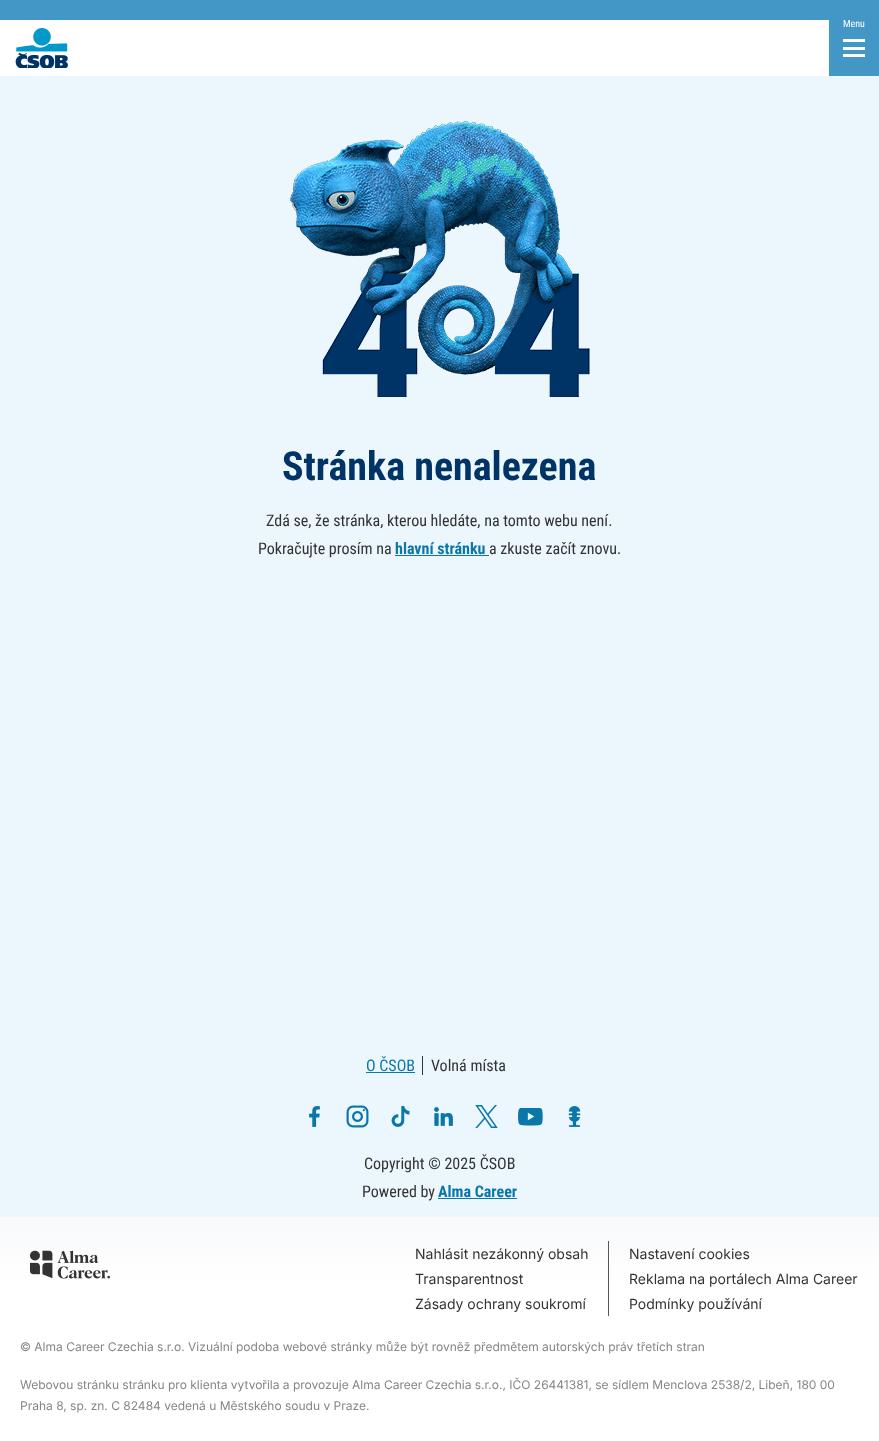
<?xml version="1.0" encoding="UTF-8"?>
<svg xmlns="http://www.w3.org/2000/svg" width="879" height="1441">
    <defs>
        <linearGradient id="g1" gradientUnits="userSpaceOnUse" x1="440" y1="1217" x2="440" y2="1441"><stop offset="0" stop-color="#F8F9FB"/><stop offset="0.3" stop-color="#FFFFFF"/><stop offset="1" stop-color="#FFFFFF"/></linearGradient>
    </defs>
    <rect width="100%" height="100%" fill="#EBF6FD"/>
    <rect x="0" y="20" width="829" height="56" fill="#FFFFFF"/>
    <rect x="0" y="0" width="829" height="20" fill="#4397C7"/>
    <rect x="829" y="0" width="50" height="76" fill="#4397C7"/>
    <text x="843" y="27" font-family="Roboto Condensed" font-size="10" fill="#FFFFFF">Menu</text>
    <rect x="843" y="39" width="22" height="3" fill="#FFFFFF"/>
    <rect x="843" y="47" width="22" height="3" fill="#FFFFFF"/>
    <rect x="843" y="54" width="22" height="3" fill="#FFFFFF"/>
    <image x="15" y="28" width="53" height="40" href="img_01.png"/>
    <image x="290" y="121" width="300" height="276" href="img_02.png"/>
    <text x="282" y="480" font-family="Roboto Condensed" font-size="40" font-weight="700" fill="#003366">Stránka nenalezena</text>
    <text x="266" y="526" font-family="Roboto Condensed" font-size="16" fill="#333333">Zdá se, že stránka, kterou hledáte, na tomto webu není.</text>
    <text x="258" y="554" font-family="Roboto Condensed" font-size="16" fill="#333333">Pokračujte prosím na</text>
    <text x="395" y="554" font-family="Roboto Condensed" font-size="16" font-weight="700" fill="#0A77A9">hlavní stránku</text>
    <rect x="395" y="555" width="94" height="1" fill="#0A77A9"/>
    <text x="489" y="554" font-family="Roboto Condensed" font-size="16" fill="#333333">a zkuste začít znovu.</text>
    <text x="366" y="1071" font-family="Roboto Condensed" font-size="16" fill="#0A77A9">O ČSOB</text>
    <rect x="366" y="1072" width="49" height="1" fill="#0A77A9"/>
    <rect x="422" y="1056" width="1" height="19" fill="#333333"/>
    <text x="431" y="1071" font-family="Roboto Condensed" font-size="16" fill="#333333">Volná místa</text>
    <image x="309" y="1106" width="11" height="21" href="img_03.png"/>
    <image x="346" y="1105" width="23" height="23" href="img_04.png"/>
    <image x="391" y="1106" width="19" height="21" href="img_05.png"/>
    <image x="434" y="1107" width="19" height="19" href="img_06.png"/>
    <image x="475" y="1105" width="23" height="23" href="img_07.png"/>
    <image x="518" y="1108" width="25" height="18" href="img_08.png"/>
    <image x="568" y="1106" width="13" height="21" href="img_09.png"/>
    <text x="364" y="1169" font-family="Roboto Condensed" font-size="16" fill="#333333">Copyright © 2025 ČSOB</text>
    <text x="362" y="1197" font-family="Roboto Condensed" font-size="16" fill="#333333">Powered by</text>
    <text x="438" y="1197" font-family="Roboto Condensed" font-size="16" font-weight="700" fill="#0A77A9">Alma Career</text>
    <rect x="438" y="1198" width="79" height="1" fill="#0A77A9"/>
    <rect x="0" y="1217" width="879" height="224" fill="url(#g1)"/>
    <image x="29" y="1250" width="81" height="29" href="img_10.png"/>
    <rect x="608" y="1241" width="1" height="75" fill="#565656"/>
    <text x="415" y="1259" font-family="Inter" font-size="14" fill="#333333">Nahlásit nezákonný obsah</text>
    <text x="629" y="1259" font-family="Inter" font-size="14" fill="#333333">Nastavení cookies</text>
    <text x="415" y="1284" font-family="Inter" font-size="14" fill="#333333">Transparentnost</text>
    <text x="629" y="1284" font-family="Inter" font-size="14" fill="#333333">Reklama na portálech Alma Career</text>
    <text x="415" y="1309" font-family="Inter" font-size="14" fill="#333333">Zásady ochrany soukromí</text>
    <text x="629" y="1309" font-family="Inter" font-size="14" fill="#333333">Podmínky používání</text>
    <text x="20" y="1351" font-family="Inter" font-size="12" fill="#858585">© Alma Career Czechia s.r.o. Vizuální podoba webové stránky může být rovněž předmětem autorských práv třetích stran</text>
    <text font-family="Inter" font-size="12" fill="#858585">
        <tspan x="20" y="1389">Webovou stránku stránku pro klienta vytvořila a provozuje Alma Career Czechia s.r.o., IČO 26441381, se sídlem Menclova 2538/2, Libeň, 180 00</tspan>
        <tspan x="20" y="1410">Praha 8, sp. zn. C 82484 vedená u Městského soudu v Praze.</tspan>
    </text>
</svg>
